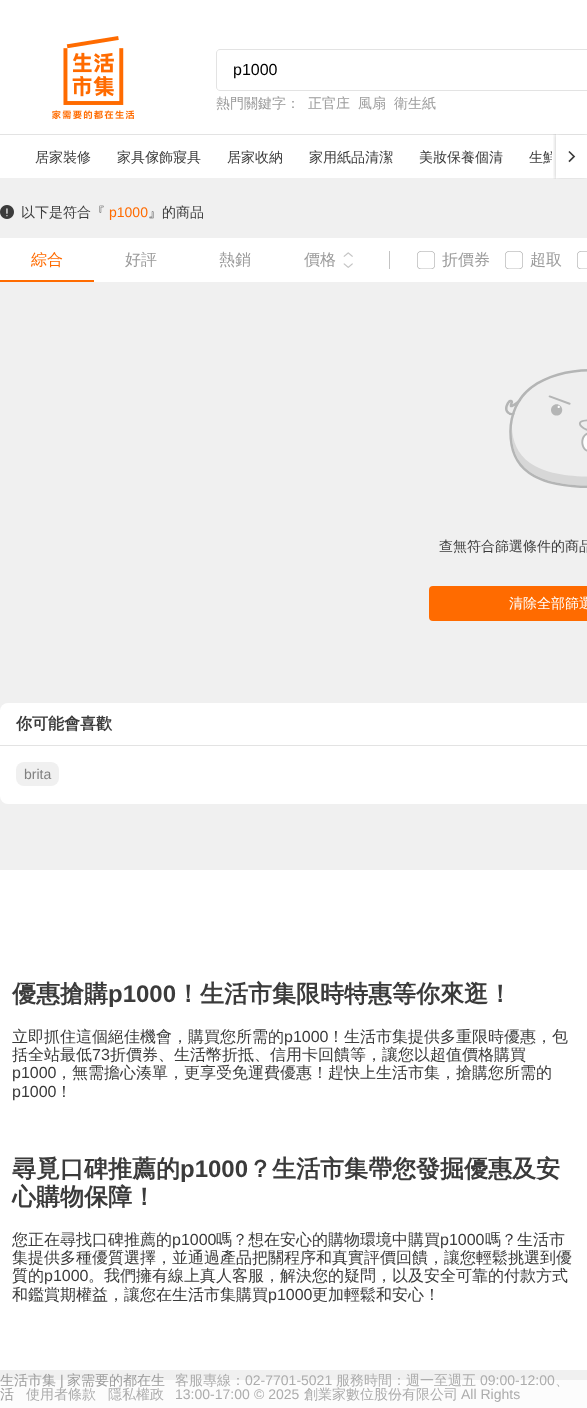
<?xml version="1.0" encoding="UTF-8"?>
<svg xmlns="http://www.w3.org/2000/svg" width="587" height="1408">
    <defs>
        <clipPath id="clip1"><rect x="35" y="135" width="517" height="44"/></clipPath>
    </defs>
    <rect width="100%" height="100%" fill="#F0F0F0"/>
    <rect x="0" y="0" width="587" height="134" fill="#FFFFFF"/>
    <image x="52" y="36" width="82" height="83" href="img_01.png"/>
    <path d="M 220 49.5 H 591.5 V 90.5 H 220 C 218 90.5 216.5 89 216.5 87 V 53 C 216.5 51 218 49.5 220 49.5 Z" fill="none" stroke="#E3E3E3"/>
    <text x="233" y="75" font-family="Liberation Sans" font-size="16" fill="#000000">p1000</text>
    <text x="216" y="108" font-family="WenQuanYi Zen Hei" font-size="14" font-weight="500" fill="#9B9B9B">熱門關鍵字：</text>
    <text x="308" y="108" font-family="WenQuanYi Zen Hei" font-size="14" font-weight="500" fill="#9B9B9B">正官庄</text>
    <text x="358" y="108" font-family="WenQuanYi Zen Hei" font-size="14" font-weight="500" fill="#9B9B9B">風扇</text>
    <text x="394" y="108" font-family="WenQuanYi Zen Hei" font-size="14" font-weight="500" fill="#9B9B9B">衛生紙</text>
    <rect x="0" y="135" width="556" height="43" fill="#FFFFFF"/>
    <rect x="0" y="134" width="587" height="1" fill="#E3E3E3"/>
    <text x="35" y="162" font-family="WenQuanYi Zen Hei" font-size="14" font-weight="500" fill="#3B3B3B">居家裝修</text>
    <text x="117" y="162" font-family="WenQuanYi Zen Hei" font-size="14" font-weight="500" fill="#3B3B3B">家具傢飾寢具</text>
    <text x="227" y="162" font-family="WenQuanYi Zen Hei" font-size="14" font-weight="500" fill="#3B3B3B">居家收納</text>
    <text x="309" y="162" font-family="WenQuanYi Zen Hei" font-size="14" font-weight="500" fill="#3B3B3B">家用紙品清潔</text>
    <text x="419" y="162" font-family="WenQuanYi Zen Hei" font-size="14" font-weight="500" fill="#3B3B3B">美妝保養個清</text>
    <g clip-path="url(#clip1)">
        <text x="529" y="162" font-family="WenQuanYi Zen Hei" font-size="14" font-weight="500" fill="#3B3B3B">生鮮</text>
    </g>
    <image x="553" y="134" width="34" height="45" href="img_02.png"/>
    <image x="0" y="205" width="14" height="14" href="img_03.png"/>
    <text x="21" y="217" font-family="WenQuanYi Zen Hei" font-size="14" font-weight="500" fill="#3B3B3B">以下是符合『</text>
    <text x="109" y="217" font-family="Liberation Sans" font-size="14" fill="#FF6B00">p1000</text>
    <text x="148" y="217" font-family="WenQuanYi Zen Hei" font-size="14" font-weight="500" fill="#3B3B3B">』的商品</text>
    <rect x="0" y="238" width="587" height="44" fill="#FFFFFF"/>
    <rect x="0" y="280" width="94" height="2" fill="#FF6B00"/>
    <text x="31" y="265" font-family="WenQuanYi Zen Hei" font-size="16" font-weight="500" fill="#FF6B00">綜合</text>
    <text x="125" y="265" font-family="WenQuanYi Zen Hei" font-size="16" font-weight="500" fill="#9B9B9B">好評</text>
    <text x="219" y="265" font-family="WenQuanYi Zen Hei" font-size="16" font-weight="500" fill="#9B9B9B">熱銷</text>
    <text x="304" y="265" font-family="WenQuanYi Zen Hei" font-size="16" font-weight="500" fill="#9B9B9B">價格</text>
    <image x="343" y="252" width="10" height="5" href="img_04.png"/>
    <image x="343" y="263" width="10" height="5" href="img_05.png"/>
    <rect x="389" y="251" width="1" height="18" fill="#C3C3C3"/>
    <image x="417" y="251" width="18" height="18" href="img_06.png"/>
    <text x="442" y="265" font-family="WenQuanYi Zen Hei" font-size="16" font-weight="500" fill="#9B9B9B">折價券</text>
    <image x="505" y="251" width="18" height="18" href="img_06.png"/>
    <text x="530" y="265" font-family="WenQuanYi Zen Hei" font-size="16" font-weight="500" fill="#9B9B9B">超取</text>
    <image x="577" y="251" width="10" height="18" href="img_07.png"/>
    <image x="505" y="369" width="82" height="119" href="img_08.png"/>
    <text x="439" y="551" font-family="WenQuanYi Zen Hei" font-size="14" font-weight="500" fill="#3B3B3B">查無符合篩選條件的商品</text>
    <rect x="429" y="586" width="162" height="35" rx="4" fill="#FF6B00"/>
    <text x="509" y="608" font-family="WenQuanYi Zen Hei" font-size="14" font-weight="500" fill="#FFFFFF">清除全部篩選</text>
    <rect x="0" y="703" width="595" height="101" rx="8" fill="#FFFFFF"/>
    <rect x="0" y="745" width="587" height="1" fill="#E3E3E3"/>
    <text x="16" y="729" font-family="WenQuanYi Zen Hei" font-size="16" font-weight="700" fill="#3B3B3B">你可能會喜歡</text>
    <rect x="16" y="762" width="43" height="24" rx="8" fill="#F0F0F0"/>
    <text x="24" y="779" font-family="Liberation Sans" font-size="14" fill="#808080">brita</text>
    <rect x="0" y="870" width="587" height="500" fill="#FFFFFF"/>
    <text x="12" y="1002" font-family="WenQuanYi Zen Hei" font-size="24" font-weight="700" fill="#3B3B3B">優惠搶購</text>
    <text x="108" y="1002" font-family="Liberation Sans" font-size="24" font-weight="700" fill="#3B3B3B">p1000</text>
    <text x="176" y="1002" font-family="WenQuanYi Zen Hei" font-size="24" font-weight="700" fill="#3B3B3B">！生活市集限時特惠等你來逛！</text>
    <text x="12" y="1042" font-family="WenQuanYi Zen Hei" font-size="16" font-weight="500" fill="#3B3B3B">立即抓住這個絕佳機會，購買您所需的</text>
    <text x="284" y="1042" font-family="Liberation Sans" font-size="16" fill="#3B3B3B">p1000</text>
    <text x="328" y="1042" font-family="WenQuanYi Zen Hei" font-size="16" font-weight="500" fill="#3B3B3B">！生活市集提供多重限時優惠，包</text>
    <text x="12" y="1060" font-family="WenQuanYi Zen Hei" font-size="16" font-weight="500" fill="#3B3B3B">括全站最低</text>
    <text x="92" y="1060" font-family="Liberation Sans" font-size="16" fill="#3B3B3B">73</text>
    <text x="110" y="1060" font-family="WenQuanYi Zen Hei" font-size="16" font-weight="500" fill="#3B3B3B">折價券、生活幣折抵、信用卡回饋等，讓您以超值價格購買</text>
    <text x="12" y="1078" font-family="Liberation Sans" font-size="16" fill="#3B3B3B">p1000</text>
    <text x="56" y="1078" font-family="WenQuanYi Zen Hei" font-size="16" font-weight="500" fill="#3B3B3B">，無需擔心湊單，更享受免運費優惠！趕快上生活市集，搶購您所需的</text>
    <text x="12" y="1097" font-family="Liberation Sans" font-size="16" fill="#3B3B3B">p1000</text>
    <text x="56" y="1097" font-family="WenQuanYi Zen Hei" font-size="16" font-weight="500" fill="#3B3B3B">！</text>
    <text x="12" y="1177" font-family="WenQuanYi Zen Hei" font-size="24" font-weight="700" fill="#3B3B3B">尋覓口碑推薦的</text>
    <text x="180" y="1177" font-family="Liberation Sans" font-size="24" font-weight="700" fill="#3B3B3B">p1000</text>
    <text x="248" y="1177" font-family="WenQuanYi Zen Hei" font-size="24" font-weight="700" fill="#3B3B3B">？生活市集帶您發掘優惠及安</text>
    <text x="12" y="1205" font-family="WenQuanYi Zen Hei" font-size="24" font-weight="700" fill="#3B3B3B">心購物保障！</text>
    <text x="12" y="1245" font-family="WenQuanYi Zen Hei" font-size="16" font-weight="500" fill="#3B3B3B">您正在尋找口碑推薦的</text>
    <text x="172" y="1245" font-family="Liberation Sans" font-size="16" fill="#3B3B3B">p1000</text>
    <text x="216" y="1245" font-family="WenQuanYi Zen Hei" font-size="16" font-weight="500" fill="#3B3B3B">嗎？想在安心的購物環境中購買</text>
    <text x="440" y="1245" font-family="Liberation Sans" font-size="16" fill="#3B3B3B">p1000</text>
    <text x="485" y="1245" font-family="WenQuanYi Zen Hei" font-size="16" font-weight="500" fill="#3B3B3B">嗎？生活市</text>
    <text font-family="WenQuanYi Zen Hei" font-size="16" font-weight="500" fill="#3B3B3B">
        <tspan x="12" y="1263">集提供多種優質選擇，並通過產品把關程序和真實評價回饋，讓您輕鬆挑選到優</tspan>
        <tspan x="12" y="1281">質的</tspan>
    </text>
    <text x="44" y="1281" font-family="Liberation Sans" font-size="16" fill="#3B3B3B">p1000</text>
    <text x="88" y="1281" font-family="WenQuanYi Zen Hei" font-size="16" font-weight="500" fill="#3B3B3B">。我們擁有線上真人客服，解決您的疑問，以及安全可靠的付款方式</text>
    <text x="12" y="1300" font-family="WenQuanYi Zen Hei" font-size="16" font-weight="500" fill="#3B3B3B">和鑑賞期權益，讓您在生活市集購買</text>
    <text x="268" y="1300" font-family="Liberation Sans" font-size="16" fill="#3B3B3B">p1000</text>
    <text x="312" y="1300" font-family="WenQuanYi Zen Hei" font-size="16" font-weight="500" fill="#3B3B3B">更加輕鬆和安心！</text>
    <rect x="0" y="1380" width="587" height="28" fill="#FCFCFC"/>
    <text x="0" y="1385" font-family="WenQuanYi Zen Hei" font-size="14" font-weight="500" fill="#9B9B9B">生活市集</text>
    <text x="60" y="1385" font-family="Liberation Sans" font-size="14" fill="#9B9B9B">|</text>
    <text x="67" y="1385" font-family="WenQuanYi Zen Hei" font-size="14" font-weight="500" fill="#9B9B9B">家需要的都在生</text>
    <text x="0" y="1399" font-family="WenQuanYi Zen Hei" font-size="14" font-weight="500" fill="#9B9B9B">活</text>
    <text x="26" y="1399" font-family="WenQuanYi Zen Hei" font-size="14" font-weight="500" fill="#ACACAC">使用者條款</text>
    <text x="108" y="1399" font-family="WenQuanYi Zen Hei" font-size="14" font-weight="500" fill="#ACACAC">隱私權政</text>
    <text x="175" y="1385" font-family="WenQuanYi Zen Hei" font-size="14" font-weight="500" fill="#ACACAC">客服專線：</text>
    <text x="245" y="1385" font-family="Liberation Sans" font-size="14" fill="#ACACAC">02-7701-5021</text>
    <text x="336" y="1385" font-family="WenQuanYi Zen Hei" font-size="14" font-weight="500" fill="#ACACAC">服務時間：週一至週五</text>
    <text x="480" y="1385" font-family="Liberation Sans" font-size="14" fill="#ACACAC">09:00-12:00</text>
    <text x="555" y="1385" font-family="WenQuanYi Zen Hei" font-size="14" font-weight="500" fill="#ACACAC">、</text>
    <text x="175" y="1399" font-family="Liberation Sans" font-size="14" fill="#ACACAC">13:00-17:00</text>
    <text x="254" y="1399" font-family="Liberation Sans" font-size="14" fill="#ACACAC">© 2025</text>
    <text x="304" y="1399" font-family="WenQuanYi Zen Hei" font-size="14" font-weight="500" fill="#ACACAC">創業家數位股份有限公司</text>
    <text x="461" y="1399" font-family="Liberation Sans" font-size="14" fill="#ACACAC">All Rights</text>
</svg>
